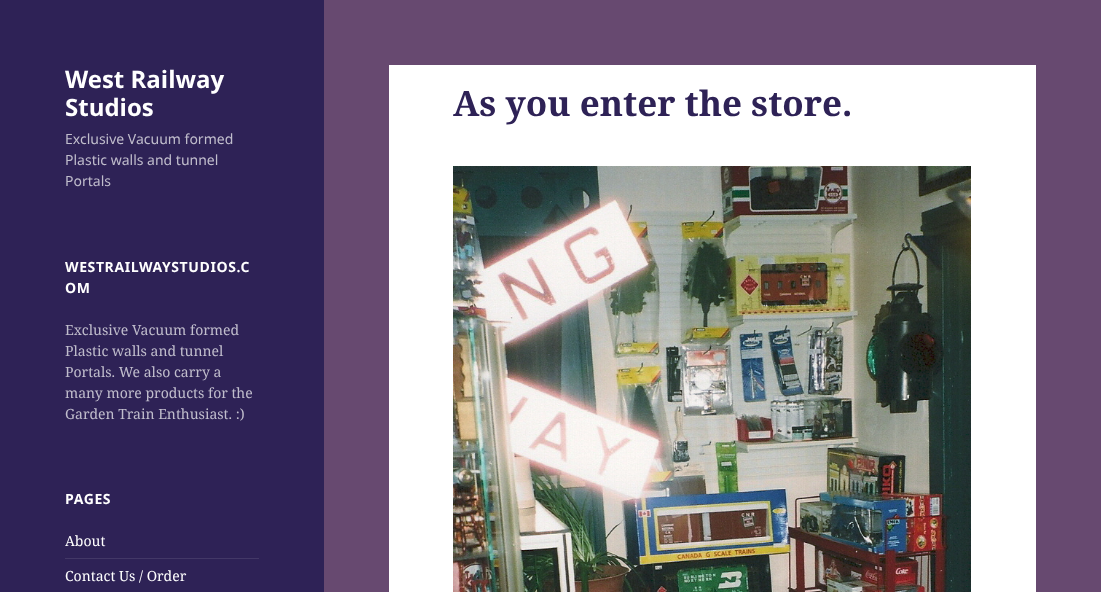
<?xml version="1.0" encoding="UTF-8"?>
<svg xmlns="http://www.w3.org/2000/svg" width="1101" height="592">
    <rect width="100%" height="100%" fill="#674970"/>
    <rect x="0" y="0" width="324" height="592" fill="#2E2256"/>
    <text font-family="Noto Sans" font-size="24" font-weight="700" fill="#FFFFFF">
        <tspan x="65" y="88">West Railway</tspan>
        <tspan x="65" y="116">Studios</tspan>
    </text>
    <text font-family="Noto Sans" font-size="14" fill="#C0BDCC">
        <tspan x="65" y="144">Exclusive Vacuum formed</tspan>
        <tspan x="65" y="165">Plastic walls and tunnel</tspan>
        <tspan x="65" y="186">Portals</tspan>
    </text>
    <text font-family="Noto Sans" font-size="14" font-weight="700" letter-spacing="0.6" fill="#FFFFFF">
        <tspan x="65" y="272">WESTRAILWAYSTUDIOS.C</tspan>
        <tspan x="65" y="293">OM</tspan>
    </text>
    <text font-family="Noto Serif" font-size="14" fill="#C0BDCC">
        <tspan x="65" y="335">Exclusive Vacuum formed</tspan>
        <tspan x="65" y="356">Plastic walls and tunnel</tspan>
        <tspan x="65" y="377">Portals. We also carry a</tspan>
        <tspan x="65" y="398">many more products for the</tspan>
        <tspan x="65" y="419">Garden Train Enthusiast. :)</tspan>
    </text>
    <text x="65" y="504" font-family="Noto Sans" font-size="14" font-weight="700" letter-spacing="0.6" fill="#FFFFFF">PAGES</text>
    <text x="65" y="546" font-family="Noto Serif" font-size="14" fill="#FFFFFF">About</text>
    <rect x="65" y="558" width="194" height="1" fill="#433867"/>
    <text x="65" y="581" font-family="Noto Serif" font-size="14" fill="#FFFFFF">Contact Us / Order</text>
    <rect x="389" y="65" width="647" height="527" fill="#FFFFFF"/>
    <text x="453" y="116" font-family="Noto Serif" font-size="35" font-weight="700" fill="#2E2256">As you enter the store.</text>
    <image x="453" y="166" width="518" height="426" href="img_01.png"/>
</svg>
